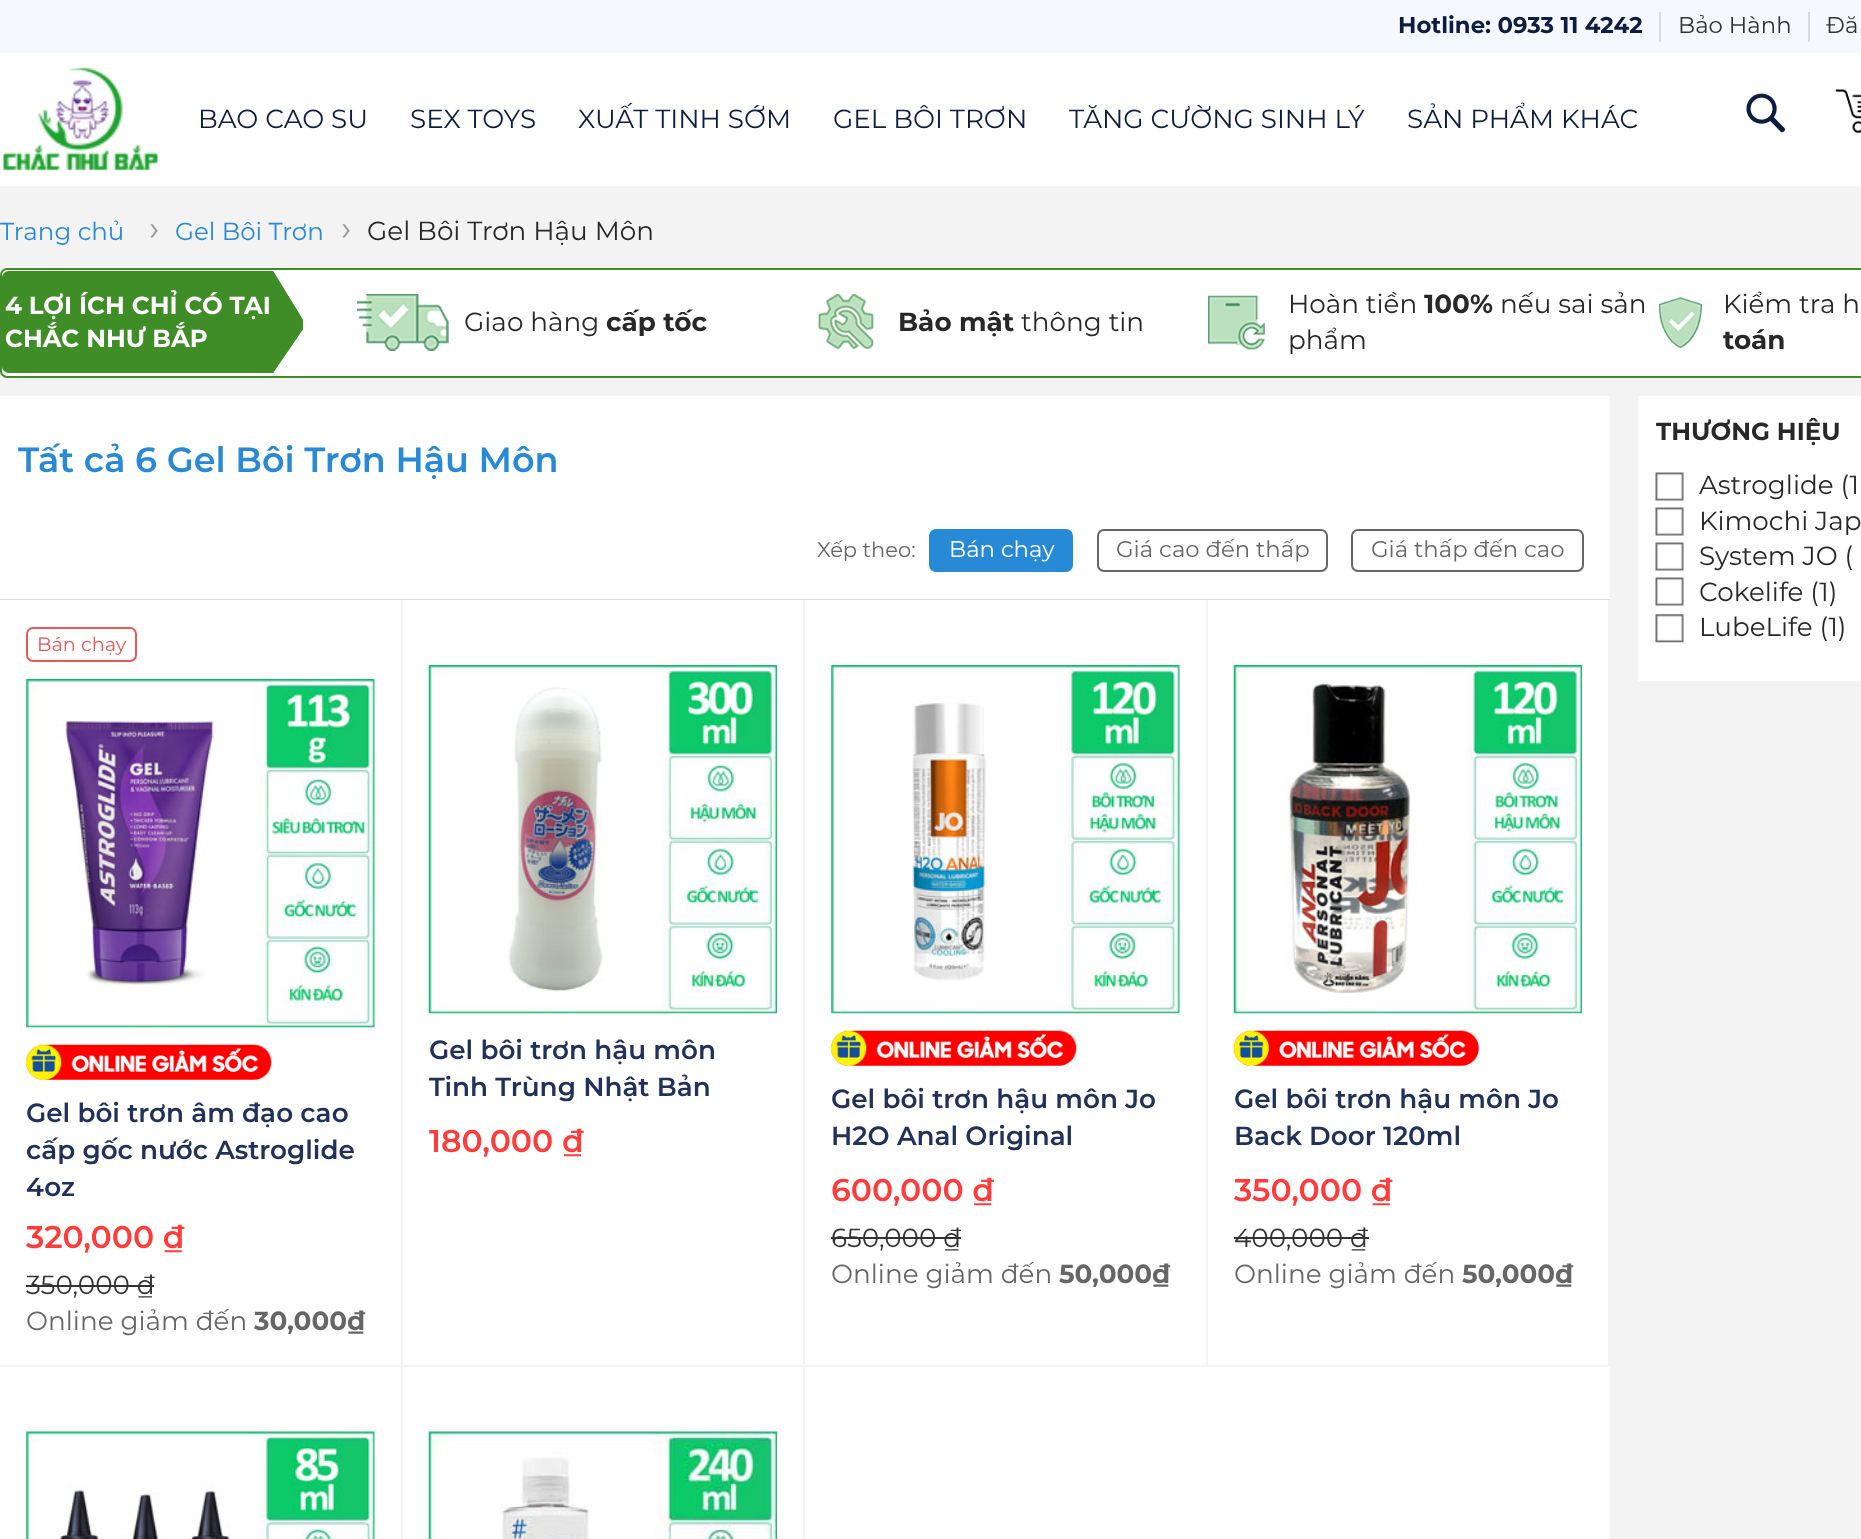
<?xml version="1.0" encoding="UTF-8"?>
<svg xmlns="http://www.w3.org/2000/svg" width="1861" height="1539">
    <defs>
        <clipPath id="clip1"><rect x="429" y="1031" width="348" height="73"/></clipPath>
        <clipPath id="clip2"><rect x="1656" y="413" width="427" height="39"/></clipPath>
    </defs>
    <rect width="100%" height="100%" fill="#F3F3F3"/>
    <rect x="0" y="0" width="1861" height="53" fill="#F5F8FF"/>
    <text x="1398" y="33" font-family="Montserrat" font-size="22.75" font-weight="700" fill="#0D1D42">Hotline: 0933 11 4242</text>
    <rect x="1659" y="12" width="2" height="30" fill="#DADADA"/>
    <text x="1678" y="33" font-family="Montserrat" font-size="22.75" fill="#333333">Bảo Hành</text>
    <rect x="1808" y="12" width="2" height="30" fill="#DADADA"/>
    <text x="1826" y="33" font-family="Montserrat" font-size="22.75" fill="#333333">Đă</text>
    <rect x="0" y="53" width="1861" height="133" fill="#FFFFFF"/>
    <image x="3" y="67" width="155" height="104" href="img_01.png"/>
    <text x="198" y="128" font-family="Montserrat" font-size="26.25" fill="#0D1D42">BAO CAO SU</text>
    <text x="410" y="128" font-family="Montserrat" font-size="26.25" fill="#0D1D42">SEX TOYS</text>
    <text x="578" y="128" font-family="Montserrat" font-size="26.25" fill="#0D1D42">XUẤT TINH SỚM</text>
    <text x="833" y="128" font-family="Montserrat" font-size="26.25" fill="#0D1D42">GEL BÔI TRƠN</text>
    <text x="1069" y="128" font-family="Montserrat" font-size="26.25" fill="#0D1D42">TĂNG CƯỜNG SINH LÝ</text>
    <text x="1407" y="128" font-family="Montserrat" font-size="26.25" fill="#0D1D42">SẢN PHẨM KHÁC</text>
    <image x="1746" y="93" width="39" height="40" href="img_02.png"/>
    <image x="1835" y="89" width="26" height="44" href="img_03.png"/>
    <text x="0" y="240" font-family="Montserrat" font-size="24.5" fill="#288AD6">Trang chủ</text>
    <text x="149" y="240" font-family="Montserrat" font-size="35" fill="#999999">›</text>
    <text x="175" y="240" font-family="Montserrat" font-size="24.5" fill="#288AD6">Gel Bôi Trơn</text>
    <text x="341" y="240" font-family="Montserrat" font-size="35" fill="#999999">›</text>
    <text x="367" y="240" font-family="Montserrat" font-size="26.25" fill="#282828">Gel Bôi Trơn Hậu Môn</text>
    <rect x="1" y="269" width="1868" height="108" rx="6" fill="#FFFFFF" stroke="#3E8D27" stroke-width="2"/>
    <path d="M 9 271 H 308 V 373 H 9 C 5 373 2 370 2 366 V 278 C 2 274 5 271 9 271 Z" fill="#3E8D27"/>
    <text font-family="Montserrat" font-size="24.5" font-weight="700" fill="#FFFFFF">
        <tspan x="5" y="314">4 LỢI ÍCH CHỈ CÓ TẠI</tspan>
        <tspan x="5" y="347">CHẮC NHƯ BẮP</tspan>
    </text>
    <path d="M 273 271 H 308 L 303 320 Z" fill="#FFFFFF"/>
    <rect x="303" y="271" width="5" height="102" fill="#FFFFFF"/>
    <path d="M 308 373 H 273 L 303 329 Z" fill="#FFFFFF"/>
    <path d="M 273 373 V 271 L 303 320 V 329 Z" fill="#3E8D27"/>
    <image x="357" y="294" width="92" height="57" href="img_04.png"/>
    <text x="464" y="331" font-family="Montserrat" font-size="26.25" fill="#282828">Giao hàng</text>
    <text x="606" y="331" font-family="Montserrat" font-size="26.25" font-weight="700" fill="#282828">cấp tốc</text>
    <image x="818" y="294" width="56" height="55" href="img_05.png"/>
    <text x="898" y="331" font-family="Montserrat" font-size="26.25" font-weight="700" fill="#282828">Bảo mật</text>
    <text x="1021" y="331" font-family="Montserrat" font-size="26.25" fill="#282828">thông tin</text>
    <image x="1208" y="295" width="57" height="55" href="img_06.png"/>
    <text x="1288" y="313" font-family="Montserrat" font-size="26.25" fill="#282828">Hoàn tiền</text>
    <text x="1424" y="313" font-family="Montserrat" font-size="26.25" font-weight="700" fill="#282828">100%</text>
    <text x="1500" y="313" font-family="Montserrat" font-size="26.25" fill="#282828">nếu sai sản</text>
    <text x="1288" y="349" font-family="Montserrat" font-size="26.25" fill="#282828">phẩm</text>
    <image x="1659" y="297" width="43" height="51" href="img_07.png"/>
    <text x="1723" y="313" font-family="Montserrat" font-size="26.25" fill="#282828">Kiểm tra h</text>
    <text x="1723" y="349" font-family="Montserrat" font-size="26.25" font-weight="700" fill="#282828">toán</text>
    <rect x="0" y="396" width="1610" height="203" fill="#FFFFFF"/>
    <text x="18" y="472" font-family="Montserrat" font-size="35" font-weight="600" fill="#288AD6">Tất cả 6 Gel Bôi Trơn Hậu Môn</text>
    <rect x="0" y="599" width="1610" height="1" fill="#DDDDDD"/>
    <text x="817" y="557" font-family="Montserrat" font-size="21" fill="#666666">Xếp theo:</text>
    <rect x="930" y="530" width="142" height="41" rx="6" fill="#288AD6" stroke="#288AD6" stroke-width="2"/>
    <text x="949" y="557" font-family="Montserrat" font-size="22.75" fill="#FFFFFF">Bán chạy</text>
    <rect x="1098" y="530" width="229" height="41" rx="6" fill="none" stroke="#666666" stroke-width="2"/>
    <text x="1116" y="557" font-family="Montserrat" font-size="22.75" fill="#666666">Giá cao đến thấp</text>
    <rect x="1352" y="530" width="231" height="41" rx="6" fill="none" stroke="#666666" stroke-width="2"/>
    <text x="1371" y="557" font-family="Montserrat" font-size="22.75" fill="#666666">Giá thấp đến cao</text>
    <rect x="0" y="600" width="1610" height="939" fill="#FFFFFF"/>
    <rect x="401" y="600" width="2" height="939" fill="#F3F3F3"/>
    <rect x="0" y="1365" width="403" height="2" fill="#F3F3F3"/>
    <rect x="27" y="628" width="109" height="33" rx="6" fill="none" stroke="#EB5757" stroke-width="2"/>
    <text x="37" y="651" font-family="Montserrat" font-size="19.25" fill="#EB5757">Bán chạy</text>
    <image x="26" y="679" width="349" height="349" href="img_08.png"/>
    <image x="26" y="1044" width="246" height="36" href="img_09.png"/>
    <text font-family="Montserrat" font-size="26.25" font-weight="600" fill="#20315C">
        <tspan x="26" y="1122">Gel bôi trơn âm đạo cao</tspan>
        <tspan x="26" y="1159">cấp gốc nước Astroglide</tspan>
        <tspan x="26" y="1196">4oz</tspan>
    </text>
    <text x="26" y="1248" font-family="Montserrat" font-size="31.5" font-weight="600" fill="#FF3C3B">320,000 ₫</text>
    <text x="26" y="1294" font-family="Montserrat" font-size="26.25" fill="#333333">350,000 ₫</text>
    <rect x="26" y="1285" width="128" height="2" fill="#333333"/>
    <text x="26" y="1330" font-family="Montserrat" font-size="26.25" fill="#666666">Online giảm đến</text>
    <text x="254" y="1330" font-family="Montserrat" font-size="26.25" font-weight="700" fill="#666666">30,000₫</text>
    <rect x="803" y="600" width="2" height="939" fill="#F3F3F3"/>
    <rect x="403" y="1365" width="402" height="2" fill="#F3F3F3"/>
    <image x="428" y="665" width="349" height="349" href="img_10.png"/>
    <text x="429" y="1059" font-family="Montserrat" font-size="26.25" font-weight="600" fill="#20315C">Gel bôi trơn hậu môn</text>
    <g clip-path="url(#clip1)">
        <text x="429" y="1096" font-family="Montserrat" font-size="26.25" font-weight="600" fill="#20315C">Tinh Trùng Nhật Bản</text>
    </g>
    <text x="429" y="1152" font-family="Montserrat" font-size="31.5" font-weight="600" fill="#FF3C3B">180,000 ₫</text>
    <rect x="1206" y="600" width="2" height="767" fill="#F3F3F3"/>
    <rect x="805" y="1365" width="403" height="2" fill="#F3F3F3"/>
    <image x="831" y="665" width="349" height="349" href="img_11.png"/>
    <image x="831" y="1030" width="246" height="36" href="img_09.png"/>
    <text font-family="Montserrat" font-size="26.25" font-weight="600" fill="#20315C">
        <tspan x="831" y="1108">Gel bôi trơn hậu môn Jo</tspan>
        <tspan x="831" y="1145">H2O Anal Original</tspan>
    </text>
    <text x="831" y="1201" font-family="Montserrat" font-size="31.5" font-weight="600" fill="#FF3C3B">600,000 ₫</text>
    <text x="831" y="1247" font-family="Montserrat" font-size="26.25" fill="#333333">650,000 ₫</text>
    <rect x="831" y="1237" width="130" height="2" fill="#333333"/>
    <text x="831" y="1283" font-family="Montserrat" font-size="26.25" fill="#666666">Online giảm đến</text>
    <text x="1059" y="1283" font-family="Montserrat" font-size="26.25" font-weight="700" fill="#666666">50,000₫</text>
    <rect x="1608" y="600" width="2" height="767" fill="#F3F3F3"/>
    <rect x="1208" y="1365" width="402" height="2" fill="#F3F3F3"/>
    <image x="1233" y="665" width="349" height="349" href="img_12.png"/>
    <image x="1233" y="1030" width="246" height="36" href="img_13.png"/>
    <text font-family="Montserrat" font-size="26.25" font-weight="600" fill="#20315C">
        <tspan x="1234" y="1108">Gel bôi trơn hậu môn Jo</tspan>
        <tspan x="1234" y="1145">Back Door 120ml</tspan>
    </text>
    <text x="1234" y="1201" font-family="Montserrat" font-size="31.5" font-weight="600" fill="#FF3C3B">350,000 ₫</text>
    <text x="1234" y="1247" font-family="Montserrat" font-size="26.25" fill="#333333">400,000 ₫</text>
    <rect x="1234" y="1237" width="135" height="2" fill="#333333"/>
    <text x="1234" y="1283" font-family="Montserrat" font-size="26.25" fill="#666666">Online giảm đến</text>
    <text x="1462" y="1283" font-family="Montserrat" font-size="26.25" font-weight="700" fill="#666666">50,000₫</text>
    <image x="26" y="1431" width="349" height="108" href="img_14.png"/>
    <image x="428" y="1431" width="349" height="108" href="img_15.png"/>
    <rect x="1638" y="396" width="223" height="285" fill="#FFFFFF"/>
    <g clip-path="url(#clip2)">
        <text x="1656" y="440" font-family="Montserrat" font-size="24.5" font-weight="700" fill="#282828">THƯƠNG HIỆU</text>
    </g>
    <image x="1655" y="472" width="29" height="29" href="img_16.png"/>
    <text x="1699" y="494" font-family="Montserrat" font-size="26.25" fill="#282828">Astroglide (1</text>
    <image x="1655" y="507" width="29" height="29" href="img_16.png"/>
    <text x="1699" y="530" font-family="Montserrat" font-size="26.25" fill="#282828">Kimochi Jap</text>
    <image x="1655" y="542" width="29" height="29" href="img_16.png"/>
    <text x="1699" y="565" font-family="Montserrat" font-size="26.25" fill="#282828">System JO (</text>
    <image x="1655" y="577" width="29" height="29" href="img_16.png"/>
    <text x="1699" y="601" font-family="Montserrat" font-size="26.25" fill="#282828">Cokelife (1)</text>
    <image x="1655" y="614" width="29" height="29" href="img_17.png"/>
    <text x="1699" y="636" font-family="Montserrat" font-size="26.25" fill="#282828">LubeLife (1)</text>
</svg>
